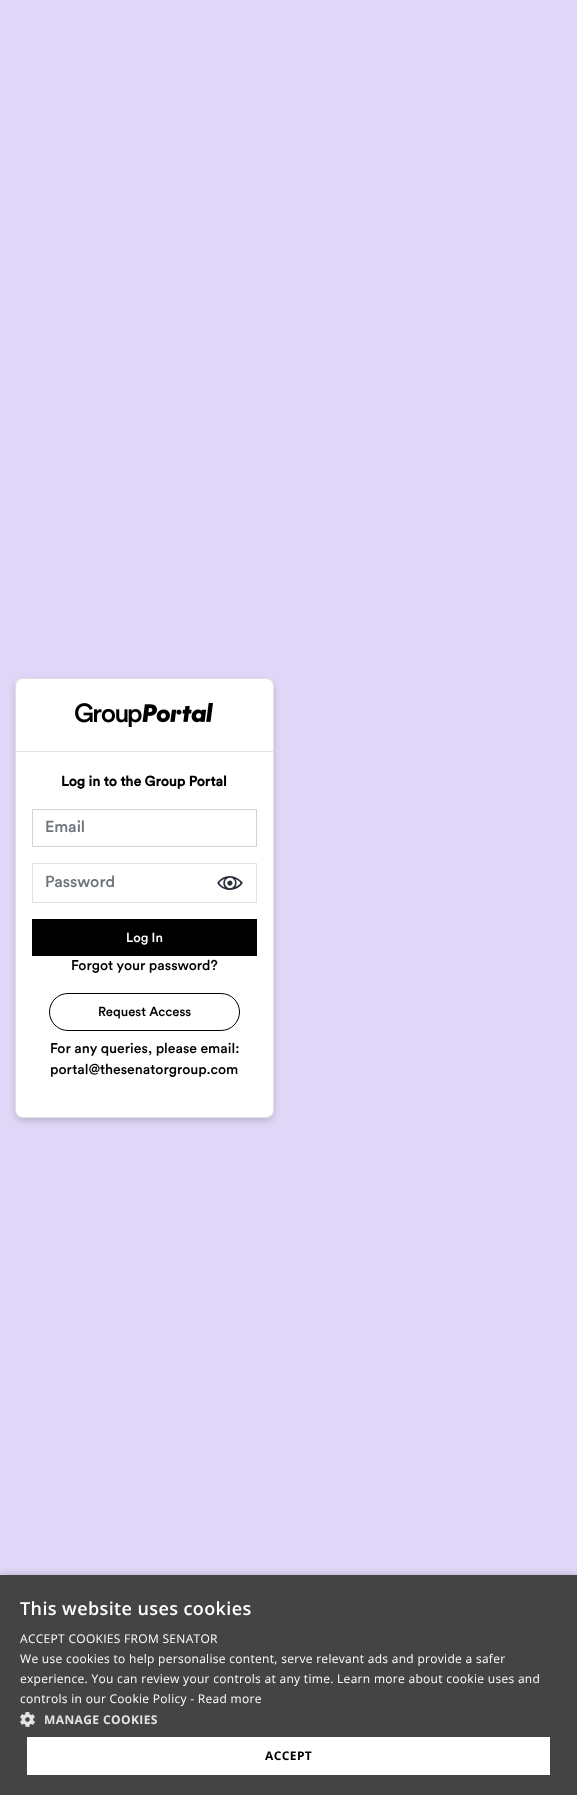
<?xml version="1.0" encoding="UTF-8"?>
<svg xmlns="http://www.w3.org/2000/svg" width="577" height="1795">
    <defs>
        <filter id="blur1" x="-50%" y="-200%" width="200%" height="500%"><feGaussianBlur stdDeviation="3"/></filter>
        <filter id="blur2" x="-50%" y="-200%" width="200%" height="500%"><feGaussianBlur stdDeviation="4"/></filter>
    </defs>
    <rect width="100%" height="100%" fill="#E0D7F8"/>
    <rect x="15" y="681" width="259" height="440" rx="8" fill="#000000" fill-opacity="0.16" filter="url(#blur1)"/>
    <rect x="15" y="678" width="259" height="440" rx="8" fill="#FFFFFF"/>
    <rect x="15.5" y="678.5" width="258" height="439" rx="7.5" fill="none" stroke="#000000" stroke-opacity="0.12"/>
    <rect x="16" y="751" width="257" height="1" fill="#DEE2E6"/>
    <image x="75" y="703" width="138" height="24" href="img_01.png"/>
    <text x="61" y="786" font-family="Circular" font-size="14" font-weight="700" fill="#000000">Log in to the Group Portal</text>
    <rect x="32.5" y="809.5" width="224" height="37" fill="none" stroke="#CED4DA"/>
    <text x="45" y="832" font-family="Circular" font-size="16" font-weight="500" fill="#6C757D">Email</text>
    <rect x="32.5" y="863.5" width="224" height="39" fill="none" stroke="#E3E3E3"/>
    <text x="45" y="887" font-family="Circular" font-size="16" font-weight="500" fill="#6C757D">Password</text>
    <image x="217" y="876" width="26" height="14" href="img_02.png"/>
    <rect x="32" y="919" width="225" height="37" fill="#000000"/>
    <text x="126" y="942" font-family="Circular" font-size="13" font-weight="500" fill="#FFFFFF">Log In</text>
    <text x="71" y="970" font-family="Circular" font-size="14" font-weight="500" fill="#000000">Forgot your password?</text>
    <rect x="49.5" y="993.5" width="190" height="37" rx="18.5" fill="none" stroke="#000000"/>
    <text x="98" y="1016" font-family="Circular" font-size="13" font-weight="500" fill="#000000">Request Access</text>
    <text font-family="Circular" font-size="14" font-weight="500" fill="#000000">
        <tspan x="50" y="1053">For any queries, please email:</tspan>
        <tspan x="50" y="1074">portal@thesenatorgroup.com</tspan>
    </text>
    <rect x="1" y="1577" width="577" height="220" fill="#000000" fill-opacity="0.35" filter="url(#blur2)"/>
    <rect x="0" y="1575" width="577" height="220" fill="#444444"/>
    <text x="20" y="1615" font-family="Open Sans" font-size="18" font-weight="600" letter-spacing="0.4" fill="#FFFFFF">This website uses cookies</text>
    <text font-family="Open Sans" font-size="12" letter-spacing="0.3" fill="#FFFFFF">
        <tspan x="20" y="1643">ACCEPT COOKIES FROM SENATOR</tspan>
        <tspan x="20" y="1663">We use cookies to help personalise content, serve relevant ads and provide a safer</tspan>
        <tspan x="20" y="1683">experience. You can review your controls at any time. Learn more about cookie uses and</tspan>
        <tspan x="20" y="1703">controls in our Cookie Policy - Read more</tspan>
    </text>
    <image x="20" y="1712" width="15" height="15" href="img_03.png"/>
    <text x="44" y="1724" font-family="Open Sans" font-size="12" font-weight="700" letter-spacing="0.4" fill="#E3E3E3">MANAGE COOKIES</text>
    <rect x="27" y="1737" width="523" height="38" fill="#FFFFFF"/>
    <text x="265" y="1760" font-family="Open Sans" font-size="12" font-weight="700" letter-spacing="0.4" fill="#000000">ACCEPT</text>
</svg>
